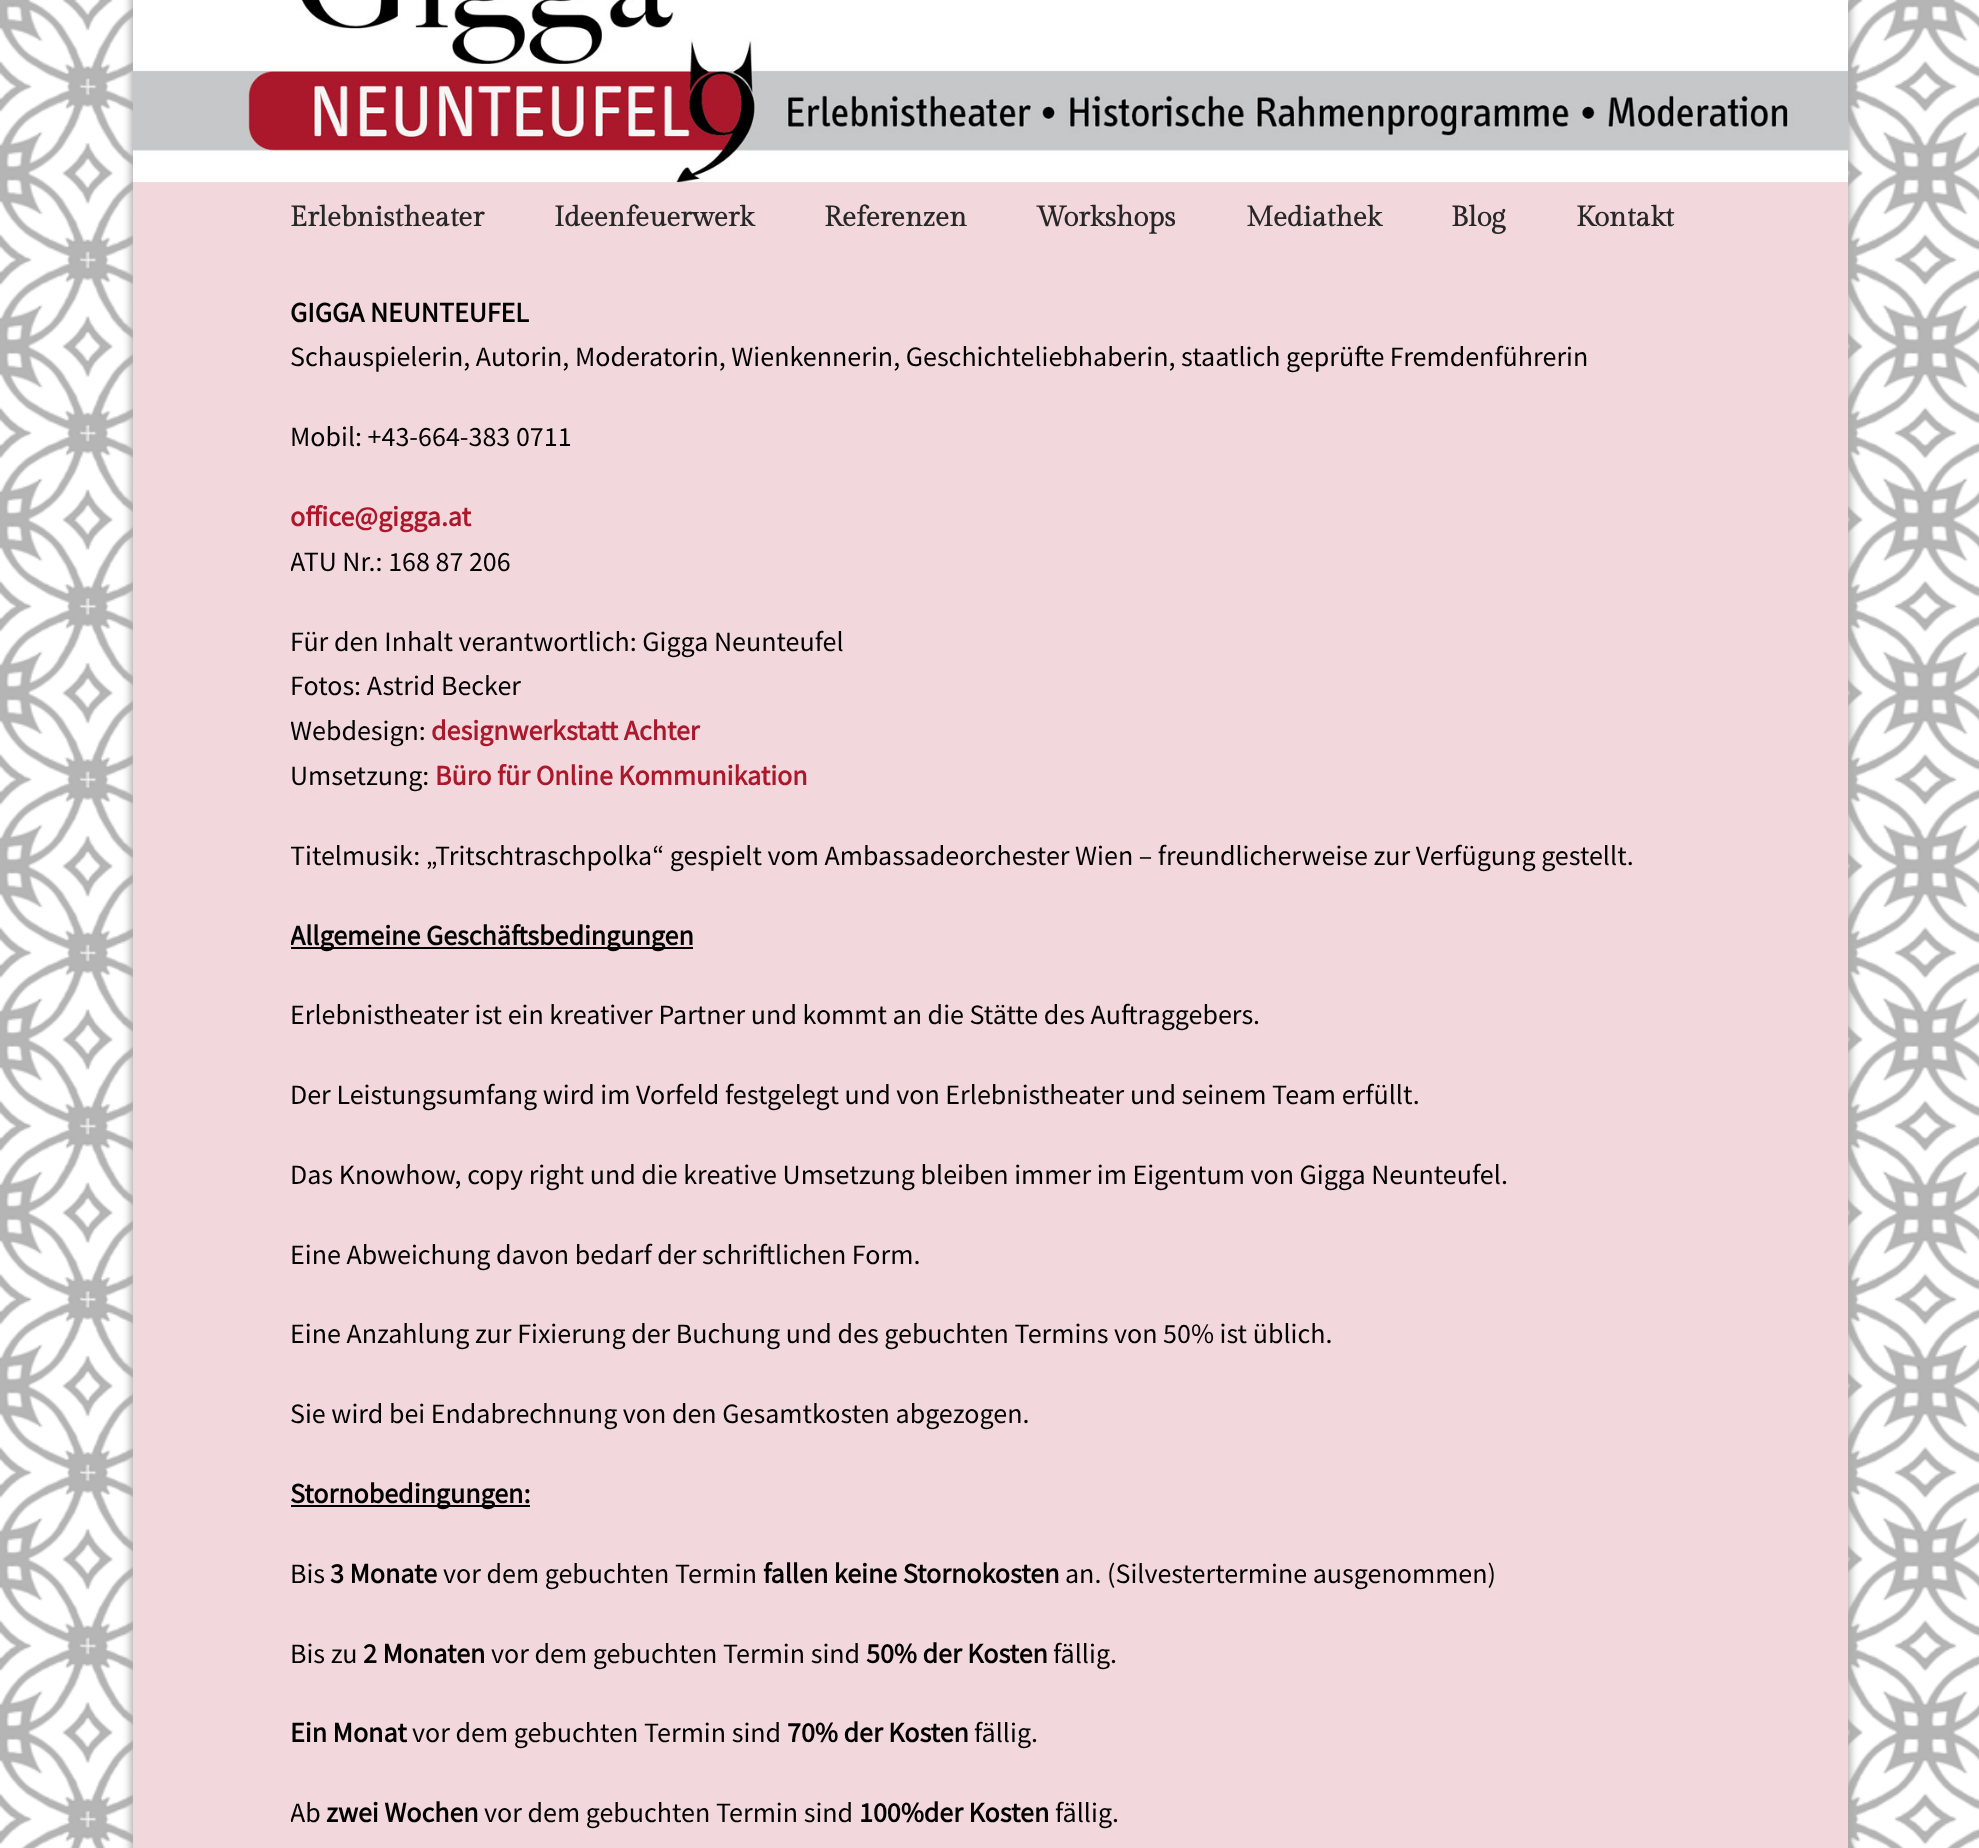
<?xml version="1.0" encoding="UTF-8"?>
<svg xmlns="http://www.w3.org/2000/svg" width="1979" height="1848">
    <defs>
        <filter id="blur1" x="-50%" y="-200%" width="200%" height="500%"><feGaussianBlur stdDeviation="4.5"/></filter>
        <clipPath id="clip1"><rect x="291" y="291" width="1365" height="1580"/></clipPath>
    </defs>
    <rect width="100%" height="100%" fill="#FFFFFF"/>
    <image x="0" y="0" width="1979" height="1848" href="img_01.png"/>
    <rect x="131" y="-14" width="1719" height="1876" fill="#A8A8A8" filter="url(#blur1)"/>
    <rect x="133" y="182" width="1715" height="1666" fill="#F2D8DD"/>
    <image x="133" y="0" width="1715" height="183" href="img_02.png"/>
    <text x="290" y="226" font-family="Gilda Display" font-size="28" font-weight="700" fill="#272727">Erlebnistheater</text>
    <text x="554" y="226" font-family="Gilda Display" font-size="28" font-weight="700" fill="#272727">Ideenfeuerwerk</text>
    <text x="824" y="226" font-family="Gilda Display" font-size="28" font-weight="700" fill="#272727">Referenzen</text>
    <text x="1036" y="226" font-family="Gilda Display" font-size="28" font-weight="700" fill="#272727">Workshops</text>
    <text x="1246" y="226" font-family="Gilda Display" font-size="28" font-weight="700" fill="#272727">Mediathek</text>
    <text x="1451" y="226" font-family="Gilda Display" font-size="28" font-weight="700" fill="#272727">Blog</text>
    <text x="1576" y="226" font-family="Gilda Display" font-size="28" font-weight="700" fill="#272727">Kontakt</text>
    <text x="290" y="322" font-family="Source Sans Pro" font-size="28" font-weight="700" fill="#000000">GIGGA NEUNTEUFEL</text>
    <text x="290" y="366" font-family="Source Sans Pro" font-size="28" fill="#000000">Schauspielerin, Autorin, Moderatorin, Wienkennerin, Geschichteliebhaberin, staatlich geprüfte Fremdenführerin</text>
    <text x="290" y="446" font-family="Source Sans Pro" font-size="28" fill="#000000">Mobil: +43-664-383 0711</text>
    <text x="290" y="526" font-family="Source Sans Pro" font-size="28" font-weight="700" fill="#AB182B">office@gigga.at</text>
    <g clip-path="url(#clip1)">
        <text x="290" y="571" font-family="Source Sans Pro" font-size="28" fill="#000000">ATU Nr.: 168 87 206</text>
    </g>
    <text font-family="Source Sans Pro" font-size="28" fill="#000000">
        <tspan x="290" y="651">Für den Inhalt verantwortlich: Gigga Neunteufel</tspan>
        <tspan x="290" y="695">Fotos: Astrid Becker</tspan>
    </text>
    <g clip-path="url(#clip1)">
        <text x="290" y="740" font-family="Source Sans Pro" font-size="28" fill="#000000">Webdesign:</text>
    </g>
    <text x="431" y="740" font-family="Source Sans Pro" font-size="28" font-weight="700" fill="#AB182B">designwerkstatt Achter</text>
    <text x="290" y="785" font-family="Source Sans Pro" font-size="28" fill="#000000">Umsetzung:</text>
    <text x="435" y="785" font-family="Source Sans Pro" font-size="28" font-weight="700" fill="#AB182B">Büro für Online Kommunikation</text>
    <g clip-path="url(#clip1)">
        <text x="290" y="865" font-family="Source Sans Pro" font-size="28" fill="#000000">Titelmusik: „Tritschtraschpolka“ gespielt vom Ambassadeorchester Wien – freundlicherweise zur Verfügung gestellt.</text>
    </g>
    <rect x="291" y="947" width="402" height="2" fill="#000000"/>
    <g clip-path="url(#clip1)">
        <text x="290" y="945" font-family="Source Sans Pro" font-size="28" font-weight="700" fill="#000000">Allgemeine Geschäftsbedingungen</text>
    </g>
    <text x="290" y="1024" font-family="Source Sans Pro" font-size="28" fill="#000000">Erlebnistheater ist ein kreativer Partner und kommt an die Stätte des Auftraggebers.</text>
    <text x="290" y="1104" font-family="Source Sans Pro" font-size="28" fill="#000000">Der Leistungsumfang wird im Vorfeld festgelegt und von Erlebnistheater und seinem Team erfüllt.</text>
    <text x="290" y="1184" font-family="Source Sans Pro" font-size="28" fill="#000000">Das Knowhow, copy right und die kreative Umsetzung bleiben immer im Eigentum von Gigga Neunteufel.</text>
    <text x="290" y="1264" font-family="Source Sans Pro" font-size="28" fill="#000000">Eine Abweichung davon bedarf der schriftlichen Form.</text>
    <text x="290" y="1343" font-family="Source Sans Pro" font-size="28" fill="#000000">Eine Anzahlung zur Fixierung der Buchung und des gebuchten Termins von 50% ist üblich.</text>
    <text x="290" y="1423" font-family="Source Sans Pro" font-size="28" fill="#000000">Sie wird bei Endabrechnung von den Gesamtkosten abgezogen.</text>
    <rect x="291" y="1505" width="239" height="2" fill="#000000"/>
    <text x="290" y="1503" font-family="Source Sans Pro" font-size="28" font-weight="700" fill="#000000">Stornobedingungen:</text>
    <text x="290" y="1583" font-family="Source Sans Pro" font-size="28" fill="#000000">Bis</text>
    <text x="330" y="1583" font-family="Source Sans Pro" font-size="28" font-weight="700" fill="#000000">3 Monate</text>
    <text x="443" y="1583" font-family="Source Sans Pro" font-size="28" fill="#000000">vor dem gebuchten Termin</text>
    <text x="763" y="1583" font-family="Source Sans Pro" font-size="28" font-weight="700" fill="#000000">fallen keine Stornokosten</text>
    <text x="1065" y="1583" font-family="Source Sans Pro" font-size="28" fill="#000000">an. (Silvestertermine ausgenommen)</text>
    <text x="290" y="1663" font-family="Source Sans Pro" font-size="28" fill="#000000">Bis zu</text>
    <text x="363" y="1663" font-family="Source Sans Pro" font-size="28" font-weight="700" fill="#000000">2 Monaten</text>
    <text x="491" y="1663" font-family="Source Sans Pro" font-size="28" fill="#000000">vor dem gebuchten Termin sind</text>
    <text x="866" y="1663" font-family="Source Sans Pro" font-size="28" font-weight="700" fill="#000000">50% der Kosten</text>
    <text x="1053" y="1663" font-family="Source Sans Pro" font-size="28" fill="#000000">fällig.</text>
    <text x="290" y="1742" font-family="Source Sans Pro" font-size="28" font-weight="700" fill="#000000">Ein Monat</text>
    <text x="412" y="1742" font-family="Source Sans Pro" font-size="28" fill="#000000">vor dem gebuchten Termin sind</text>
    <text x="787" y="1742" font-family="Source Sans Pro" font-size="28" font-weight="700" fill="#000000">70% der Kosten</text>
    <text x="974" y="1742" font-family="Source Sans Pro" font-size="28" fill="#000000">fällig.</text>
    <g clip-path="url(#clip1)">
        <text x="290" y="1822" font-family="Source Sans Pro" font-size="28" fill="#000000">Ab</text>
    </g>
    <text x="326" y="1822" font-family="Source Sans Pro" font-size="28" font-weight="700" fill="#000000">zwei Wochen</text>
    <text x="484" y="1822" font-family="Source Sans Pro" font-size="28" fill="#000000">vor dem gebuchten Termin sind</text>
    <text x="859" y="1822" font-family="Source Sans Pro" font-size="28" font-weight="700" fill="#000000">100%der Kosten</text>
    <text x="1055" y="1822" font-family="Source Sans Pro" font-size="28" fill="#000000">fällig.</text>
</svg>
